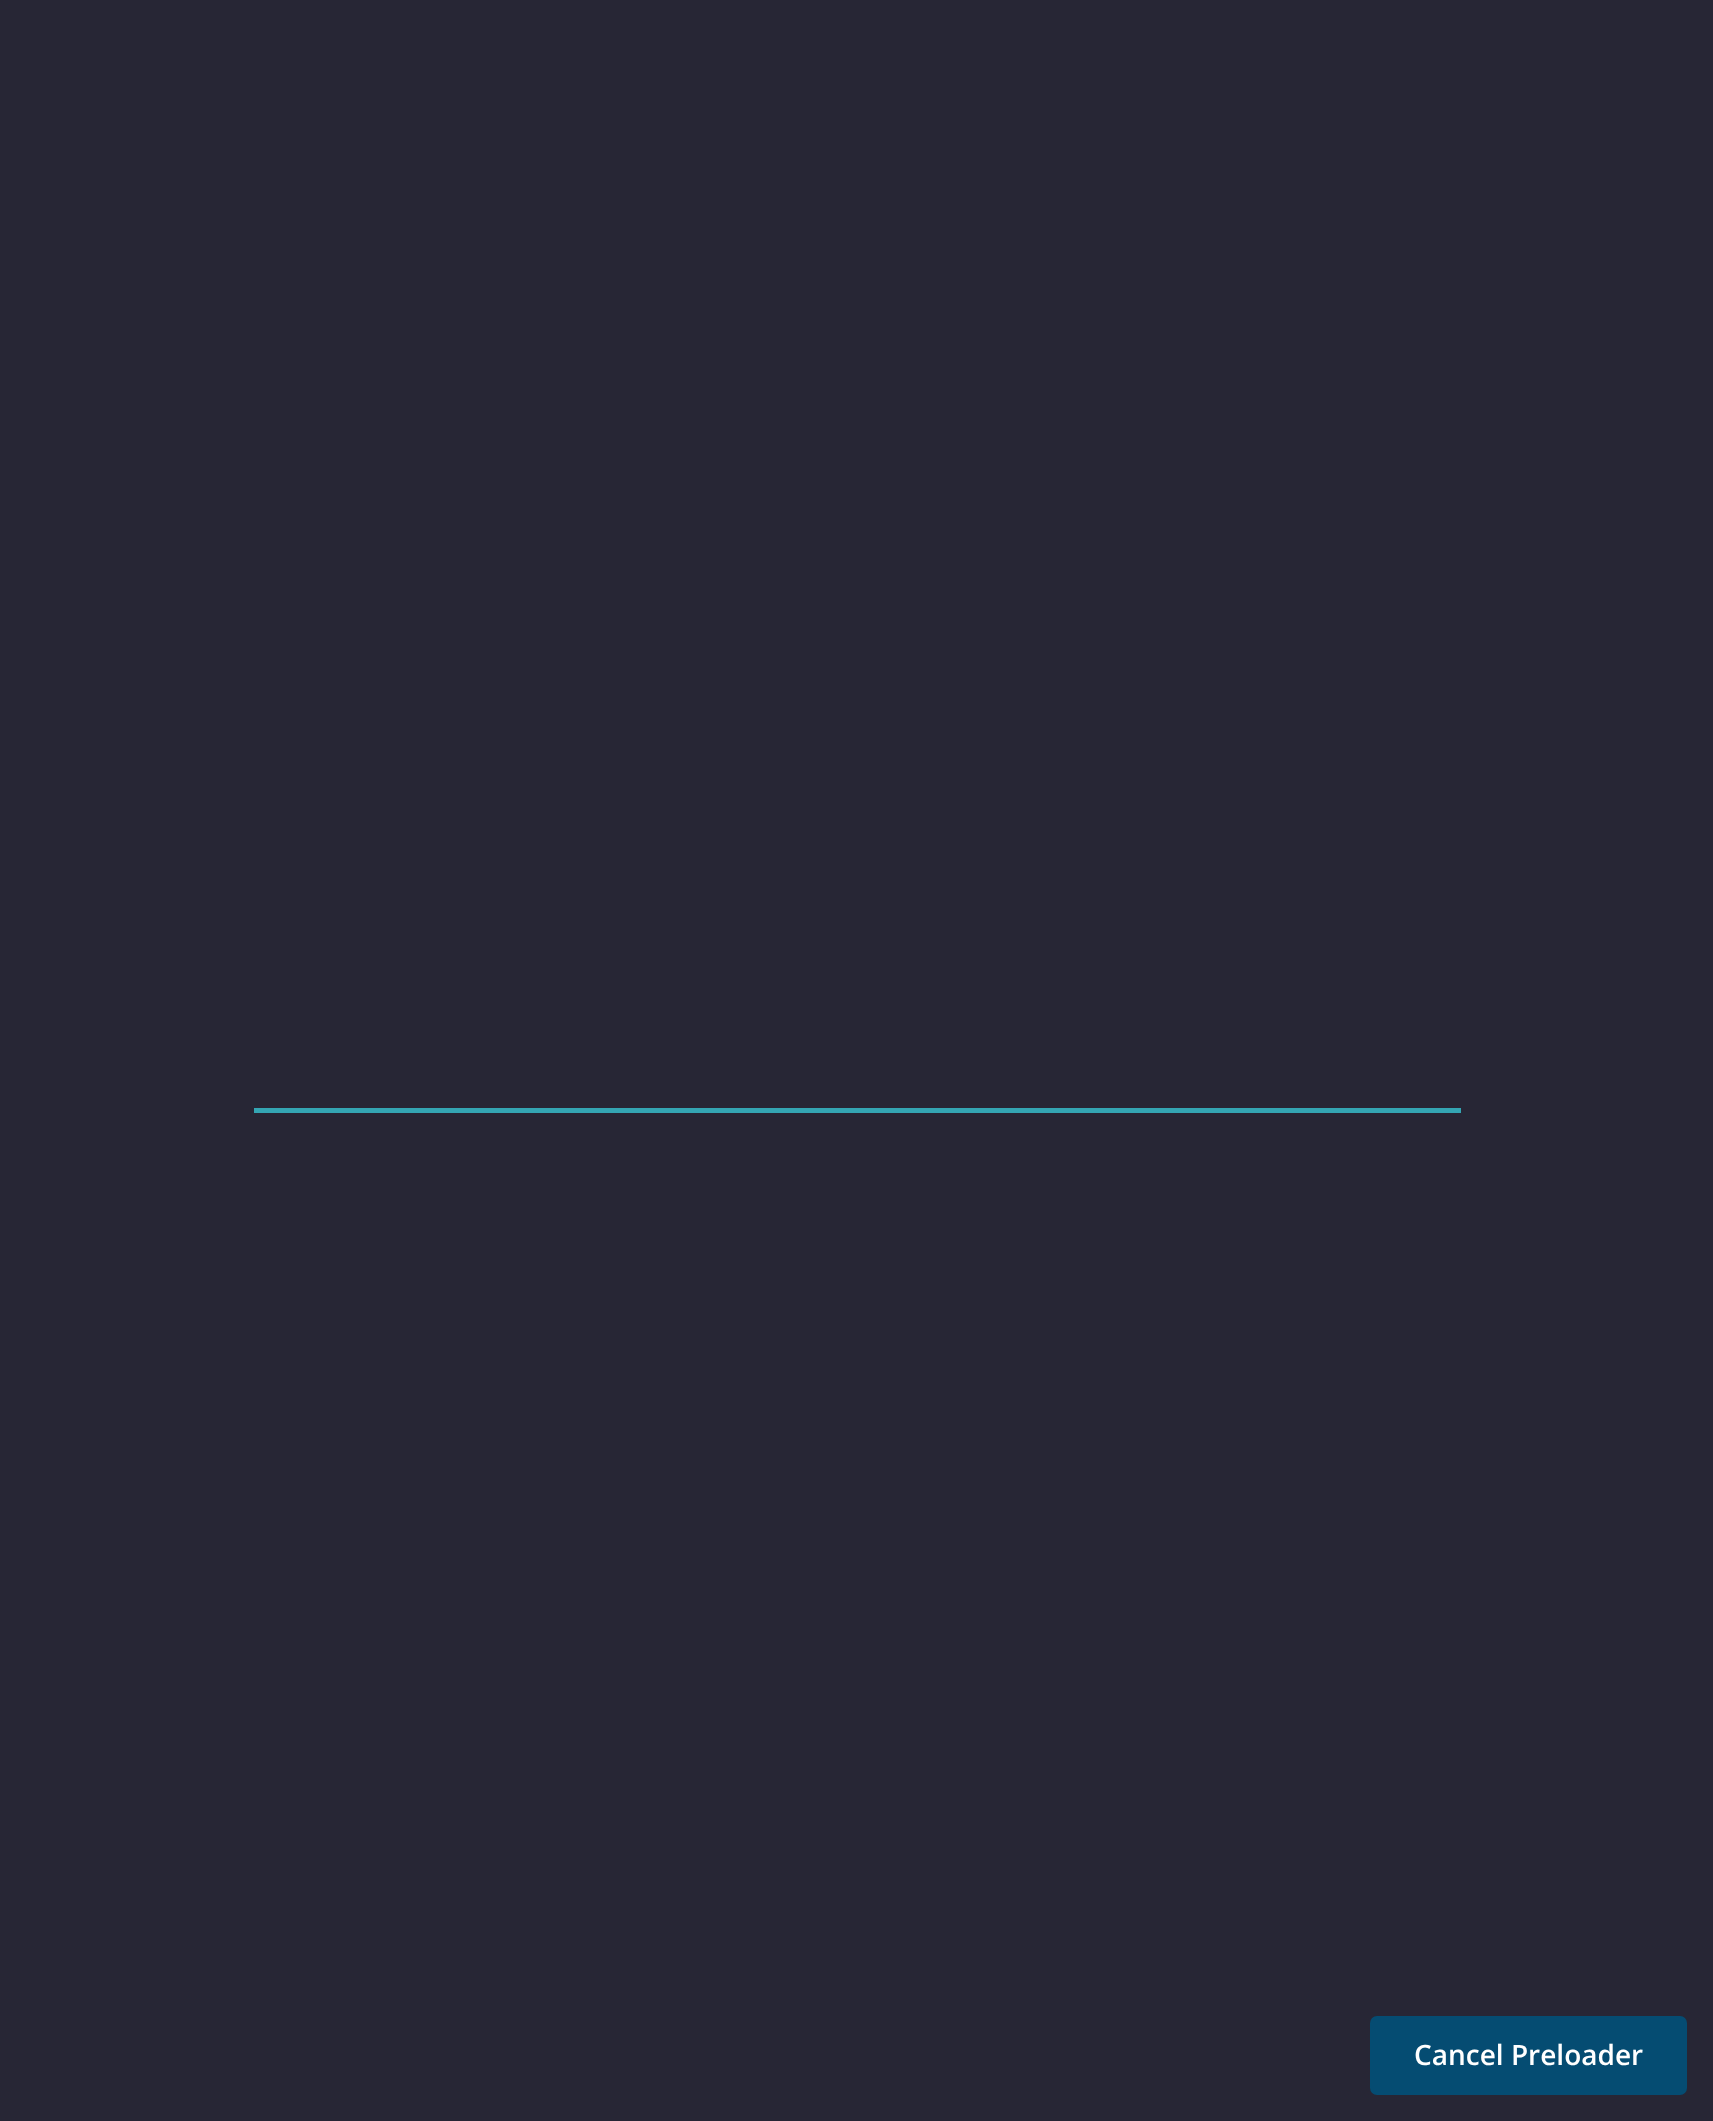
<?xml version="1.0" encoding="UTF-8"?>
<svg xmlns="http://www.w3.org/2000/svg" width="1713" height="2121">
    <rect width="100%" height="100%" fill="#272635"/>
    <rect x="254" y="1108" width="1207" height="5" fill="#34A5B3"/>
    <rect x="1370" y="2016" width="317" height="79" rx="7" fill="#054C72"/>
    <text x="1414" y="2065" font-family="Open Sans" font-size="28" font-weight="600" fill="#FFFFFF">Cancel Preloader</text>
</svg>
